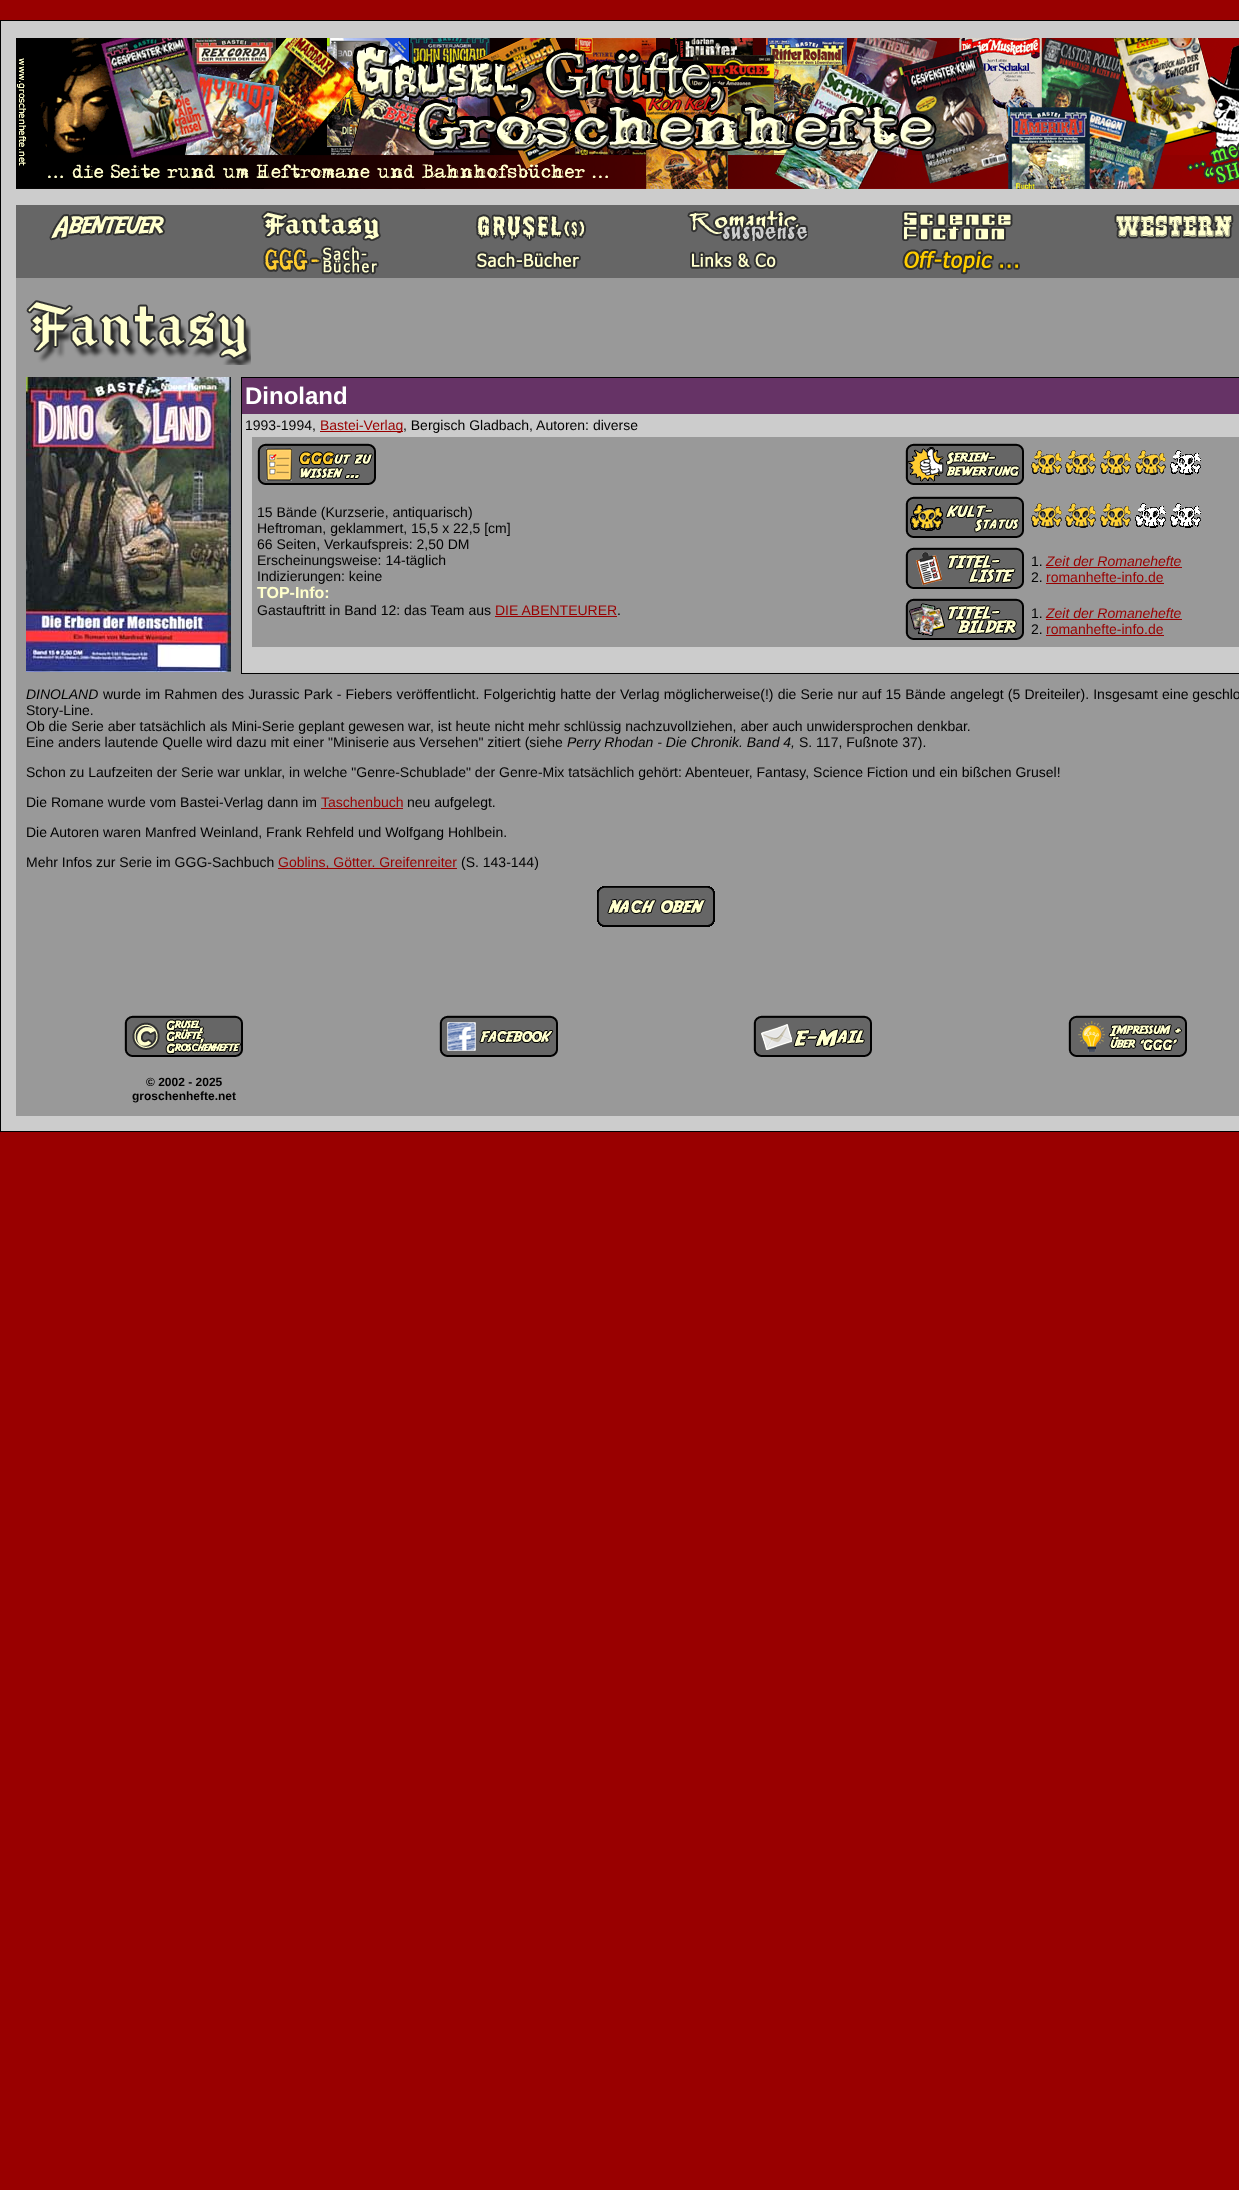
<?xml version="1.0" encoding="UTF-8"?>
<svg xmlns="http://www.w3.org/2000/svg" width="1239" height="2190">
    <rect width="100%" height="100%" fill="#990000"/>
    <rect x="0.5" y="20.5" width="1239" height="1111" fill="#CCCCCC" stroke="#000000"/>
    <image x="16" y="38" width="1223" height="151" href="img_01.png"/>
    <rect x="16" y="205" width="1223" height="73" fill="#666666"/>
    <image x="49" y="213" width="117" height="28" href="img_02.png"/>
    <image x="261" y="211" width="120" height="30" href="img_03.png"/>
    <image x="475" y="214" width="112" height="27" href="img_04.png"/>
    <image x="687" y="211" width="121" height="30" href="img_05.png"/>
    <image x="902" y="211" width="111" height="30" href="img_06.png"/>
    <image x="1114" y="213" width="120" height="26" href="img_07.png"/>
    <image x="263" y="245" width="116" height="30" href="img_08.png"/>
    <image x="475" y="251" width="106" height="18" href="img_09.png"/>
    <image x="690" y="251" width="88" height="18" href="img_10.png"/>
    <image x="902" y="249" width="118" height="26" href="img_11.png"/>
    <rect x="16" y="278" width="1223" height="838" fill="#999999"/>
    <image x="26" y="300" width="225" height="65" href="img_12.png"/>
    <image x="26" y="377" width="205" height="295" href="img_13.png"/>
    <rect x="242" y="414" width="997" height="259" fill="#CCCCCC"/>
    <rect x="241.5" y="377.5" width="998" height="296" fill="none" stroke="#000000"/>
    <rect x="242" y="378" width="997" height="36" fill="#663366"/>
    <text x="245" y="404" font-family="Liberation Sans" font-size="24" font-weight="700" fill="#FFFFFF">Dinoland</text>
    <text x="245" y="430" font-family="Liberation Sans" font-size="14" fill="#000000">1993-1994,</text>
    <rect x="320" y="431" width="83" height="1" fill="#990000"/>
    <text x="320" y="430" font-family="Liberation Sans" font-size="14" fill="#990000">Bastei-Verlag</text>
    <text x="403" y="430" font-family="Liberation Sans" font-size="14" fill="#000000">, Bergisch Gladbach, Autoren: diverse</text>
    <rect x="252" y="437" width="987" height="53" fill="#999999"/>
    <image x="257" y="443" width="119" height="42" href="img_14.png"/>
    <image x="905" y="443" width="119" height="42" href="img_15.png"/>
    <image x="1031" y="450" width="31" height="25" href="img_16.png"/>
    <image x="1065" y="450" width="31" height="25" href="img_16.png"/>
    <image x="1100" y="450" width="31" height="25" href="img_16.png"/>
    <image x="1135" y="450" width="31" height="25" href="img_16.png"/>
    <image x="1170" y="450" width="31" height="25" href="img_17.png"/>
    <rect x="871" y="490" width="368" height="53" fill="#999999"/>
    <image x="905" y="496" width="119" height="42" href="img_18.png"/>
    <rect x="252" y="490" width="619" height="157" fill="#999999"/>
    <text font-family="Liberation Sans" font-size="14" fill="#000000">
        <tspan x="257" y="517">15 Bände (Kurzserie, antiquarisch)</tspan>
        <tspan x="257" y="533">Heftroman, geklammert, 15,5 x 22,5 [cm]</tspan>
        <tspan x="257" y="549">66 Seiten, Verkaufspreis: 2,50 DM</tspan>
        <tspan x="257" y="565">Erscheinungsweise: 14-täglich</tspan>
        <tspan x="257" y="581">Indizierungen: keine</tspan>
    </text>
    <text x="257" y="598" font-family="Liberation Sans" font-size="16" font-weight="700" fill="#FFFFCC">TOP-Info:</text>
    <text x="257" y="615" font-family="Liberation Sans" font-size="14" fill="#000000">Gastauftritt in Band 12: das Team aus</text>
    <text x="495" y="615" font-family="Liberation Sans" font-size="14" fill="#990000">DIE ABENTEURER</text>
    <rect x="495" y="616" width="122" height="1" fill="#990000"/>
    <text x="617" y="615" font-family="Liberation Sans" font-size="14" fill="#000000">.</text>
    <image x="1031" y="503" width="31" height="25" href="img_16.png"/>
    <image x="1065" y="503" width="31" height="25" href="img_16.png"/>
    <image x="1100" y="503" width="31" height="25" href="img_16.png"/>
    <image x="1135" y="503" width="31" height="25" href="img_17.png"/>
    <image x="1170" y="503" width="31" height="25" href="img_17.png"/>
    <rect x="871" y="543" width="368" height="51" fill="#999999"/>
    <image x="905" y="547" width="119" height="42" href="img_19.png"/>
    <text x="1031" y="566" font-family="Liberation Sans" font-size="14" fill="#000000">1.</text>
    <text x="1046" y="566" font-family="Liberation Sans" font-size="14" font-style="italic" fill="#990000">Zeit der Romanehefte</text>
    <rect x="1046" y="567" width="136" height="1" fill="#990000"/>
    <text x="1031" y="582" font-family="Liberation Sans" font-size="14" fill="#000000">2.</text>
    <text x="1046" y="582" font-family="Liberation Sans" font-size="14" fill="#990000">romanhefte-info.de</text>
    <rect x="1046" y="583" width="118" height="1" fill="#990000"/>
    <rect x="871" y="594" width="368" height="53" fill="#999999"/>
    <image x="905" y="598" width="119" height="42" href="img_20.png"/>
    <text x="1031" y="618" font-family="Liberation Sans" font-size="14" fill="#000000">1.</text>
    <text x="1046" y="618" font-family="Liberation Sans" font-size="14" font-style="italic" fill="#990000">Zeit der Romanehefte</text>
    <rect x="1046" y="619" width="136" height="1" fill="#990000"/>
    <text x="1031" y="634" font-family="Liberation Sans" font-size="14" fill="#000000">2.</text>
    <text x="1046" y="634" font-family="Liberation Sans" font-size="14" fill="#990000">romanhefte-info.de</text>
    <rect x="1046" y="635" width="118" height="1" fill="#990000"/>
    <text x="26" y="699" font-family="Liberation Sans" font-size="14" font-style="italic" fill="#000000">DINOLAND</text>
    <text x="103" y="699" word-spacing="0.3" font-family="Liberation Sans" font-size="14" fill="#000000">wurde im Rahmen des Jurassic Park - Fiebers veröffentlicht. Folgerichtig hatte der Verlag möglicherweise(!) die Serie nur auf 15 Bände angelegt (5 Dreiteiler). Insgesamt</text>
    <text x="1162" y="699" font-family="Liberation Sans" font-size="14" fill="#000000">eine geschlo</text>
    <text font-family="Liberation Sans" font-size="14" fill="#000000">
        <tspan x="26" y="715">Story-Line.</tspan>
        <tspan x="26" y="731">Ob die Serie aber tatsächlich als Mini-Serie geplant gewesen war, ist heute nicht mehr schlüssig nachzuvollziehen, aber auch unwidersprochen denkbar.</tspan>
        <tspan x="26" y="747">Eine anders lautende Quelle wird dazu mit einer "Miniserie aus Versehen" zitiert (siehe</tspan>
    </text>
    <text x="567" y="747" font-family="Liberation Sans" font-size="14" font-style="italic" fill="#000000">Perry Rhodan - Die Chronik. Band 4,</text>
    <text x="799" y="747" font-family="Liberation Sans" font-size="14" fill="#000000">S. 117, Fußnote 37).</text>
    <text x="26" y="777" font-family="Liberation Sans" font-size="14" fill="#000000">Schon zu Laufzeiten der Serie war unklar, in welche "Genre-Schublade" der Genre-Mix tatsächlich gehört: Abenteuer, Fantasy, Science Fiction und ein bißchen Grusel!</text>
    <text x="26" y="807" font-family="Liberation Sans" font-size="14" fill="#000000">Die Romane wurde vom Bastei-Verlag dann im</text>
    <text x="321" y="807" font-family="Liberation Sans" font-size="14" fill="#990000">Taschenbuch</text>
    <rect x="321" y="808" width="82" height="1" fill="#990000"/>
    <text x="407" y="807" font-family="Liberation Sans" font-size="14" fill="#000000">neu aufgelegt.</text>
    <text x="26" y="837" font-family="Liberation Sans" font-size="14" fill="#000000">Die</text>
    <text x="50" y="837" font-family="Liberation Sans" font-size="14" fill="#000000">Autoren waren Manfred Weinland, Frank Rehfeld und Wolfgang Hohlbein.</text>
    <text x="26" y="867" font-family="Liberation Sans" font-size="14" fill="#000000">Mehr Infos zur Serie im GGG-Sachbuch</text>
    <rect x="278" y="868" width="179" height="1" fill="#990000"/>
    <text x="278" y="867" font-family="Liberation Sans" font-size="14" fill="#990000">Goblins, Götter. Greifenreiter</text>
    <text x="461" y="867" font-family="Liberation Sans" font-size="14" fill="#000000">(S. 143-144)</text>
    <image x="597" y="886" width="118" height="41" href="img_21.png"/>
    <image x="124" y="1015" width="119" height="42" href="img_22.png"/>
    <image x="439" y="1015" width="119" height="42" href="img_23.png"/>
    <image x="753" y="1015" width="119" height="42" href="img_24.png"/>
    <image x="1068" y="1015" width="119" height="42" href="img_25.png"/>
    <text x="146" y="1086" font-family="Liberation Sans" font-size="12" font-weight="700" fill="#000000">© 2002 - 2025</text>
    <text x="132" y="1100" font-family="Liberation Sans" font-size="12" font-weight="700" fill="#000000">groschenhefte.net</text>
</svg>
